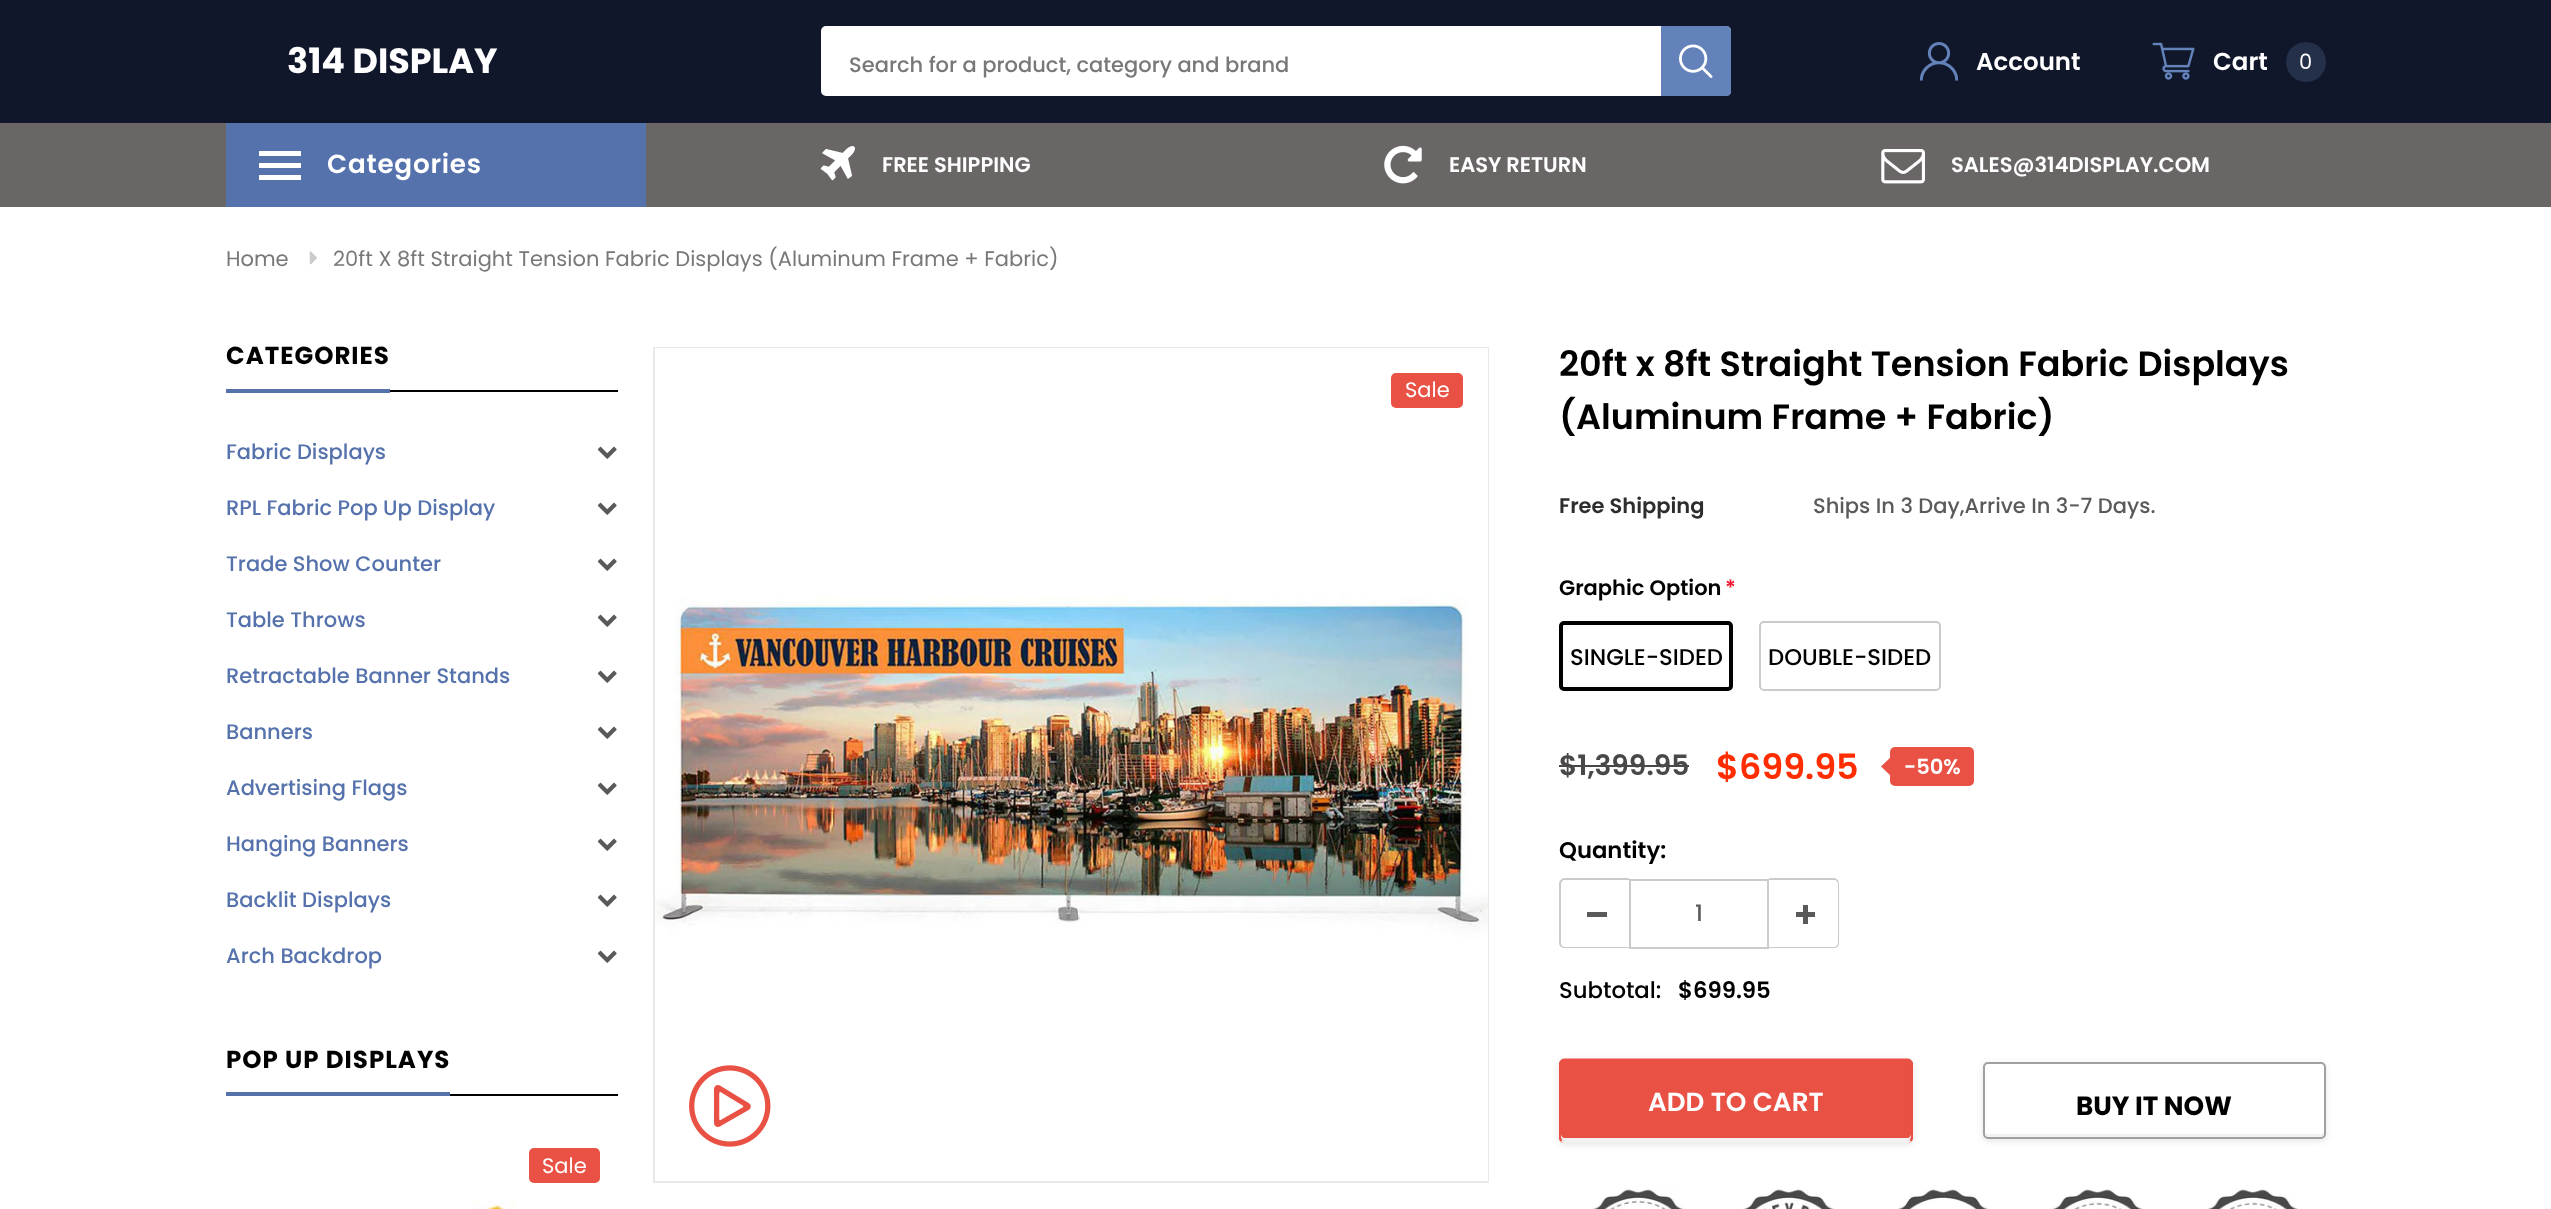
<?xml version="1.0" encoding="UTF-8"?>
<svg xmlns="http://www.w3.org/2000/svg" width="2551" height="1209">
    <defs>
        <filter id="blur1" x="-50%" y="-200%" width="200%" height="500%"><feGaussianBlur stdDeviation="3.5"/></filter>
    </defs>
    <rect width="100%" height="100%" fill="#FFFFFF"/>
    <rect x="0" y="0" width="2551" height="123" fill="#11172B"/>
    <text x="287" y="73" font-family="Poppins" font-size="35" font-weight="700" fill="#FFFFFF">314 DISPLAY</text>
    <rect x="821" y="26" width="910" height="70" rx="5" fill="#FFFFFF"/>
    <text x="849" y="72" font-family="Poppins" font-size="21" font-weight="500" fill="#787878">Search for a product, category and brand</text>
    <path d="M 1661 26 H 1726 C 1729 26 1731 28 1731 31 V 91 C 1731 94 1729 96 1726 96 H 1661 Z" fill="#6382BA"/>
    <image x="1679" y="44" width="34" height="34" href="img_01.png"/>
    <image x="1920" y="42" width="38" height="39" href="img_02.png"/>
    <text x="1976" y="70" font-family="Poppins" font-size="24.5" font-weight="600" fill="#FFFFFF">Account</text>
    <image x="2152" y="42" width="43" height="38" href="img_03.png"/>
    <text x="2213" y="70" font-family="Poppins" font-size="24.5" font-weight="600" fill="#FFFFFF">Cart</text>
    <circle cx="2306" cy="62" r="20" fill="#242F49"/>
    <text x="2299" y="69" font-family="Poppins" font-size="21" fill="#FFFFFF">0</text>
    <rect x="0" y="123" width="2551" height="84" fill="#6A6666"/>
    <rect x="226" y="123" width="420" height="84" fill="#5572AD"/>
    <rect x="259" y="163" width="42" height="5" fill="#FFFFFF"/>
    <rect x="259" y="151" width="42" height="5" fill="#FFFFFF"/>
    <rect x="259" y="175" width="42" height="5" fill="#FFFFFF"/>
    <text x="327" y="173" font-family="Poppins" font-size="26.25" font-weight="600" letter-spacing="0.75" fill="#FFFFFF">Categories</text>
    <image x="820" y="146" width="35" height="35" href="img_04.png"/>
    <text x="882" y="172" font-family="Poppins" font-size="21" font-weight="600" fill="#FFFFFF">FREE SHIPPING</text>
    <image x="1384" y="145" width="38" height="39" href="img_05.png"/>
    <text x="1449" y="172" font-family="Poppins" font-size="21" font-weight="600" fill="#FFFFFF">EASY RETURN</text>
    <image x="1881" y="149" width="44" height="35" href="img_06.png"/>
    <text x="1951" y="172" font-family="Poppins" font-size="21" font-weight="600" fill="#FFFFFF">SALES@314DISPLAY.COM</text>
    <text x="226" y="266" font-family="Poppins" font-size="21" fill="#787878">Home</text>
    <image x="309" y="251" width="8" height="14" href="img_07.png"/>
    <text x="333" y="266" font-family="Poppins" font-size="21" fill="#787878">20ft X 8ft Straight Tension Fabric Displays (Aluminum Frame + Fabric)</text>
    <rect x="390" y="390" width="228" height="2" fill="#000000"/>
    <text x="226" y="364" font-family="Poppins" font-size="24.5" font-weight="700" letter-spacing="1" fill="#000000">CATEGORIES</text>
    <rect x="226" y="389" width="164" height="4" fill="#5572AD"/>
    <text x="226" y="459" font-family="Poppins" font-size="21" font-weight="500" fill="#5572AD">Fabric Displays</text>
    <image x="597" y="446" width="20" height="13" href="img_08.png"/>
    <text x="226" y="515" font-family="Poppins" font-size="21" font-weight="500" fill="#5572AD">RPL Fabric Pop Up Display</text>
    <image x="597" y="502" width="20" height="13" href="img_08.png"/>
    <text x="226" y="571" font-family="Poppins" font-size="21" font-weight="500" fill="#5572AD">Trade Show Counter</text>
    <image x="597" y="558" width="20" height="13" href="img_08.png"/>
    <text x="226" y="627" font-family="Poppins" font-size="21" font-weight="500" fill="#5572AD">Table Throws</text>
    <image x="597" y="614" width="20" height="13" href="img_08.png"/>
    <text x="226" y="683" font-family="Poppins" font-size="21" font-weight="500" fill="#5572AD">Retractable Banner Stands</text>
    <image x="597" y="670" width="20" height="13" href="img_08.png"/>
    <text x="226" y="739" font-family="Poppins" font-size="21" font-weight="500" fill="#5572AD">Banners</text>
    <image x="597" y="726" width="20" height="13" href="img_08.png"/>
    <text x="226" y="795" font-family="Poppins" font-size="21" font-weight="500" fill="#5572AD">Advertising Flags</text>
    <image x="597" y="782" width="20" height="13" href="img_08.png"/>
    <text x="226" y="851" font-family="Poppins" font-size="21" font-weight="500" fill="#5572AD">Hanging Banners</text>
    <image x="597" y="838" width="20" height="13" href="img_08.png"/>
    <text x="226" y="907" font-family="Poppins" font-size="21" font-weight="500" fill="#5572AD">Backlit Displays</text>
    <image x="597" y="894" width="20" height="13" href="img_08.png"/>
    <text x="226" y="963" font-family="Poppins" font-size="21" font-weight="500" fill="#5572AD">Arch Backdrop</text>
    <image x="597" y="950" width="20" height="13" href="img_08.png"/>
    <rect x="450" y="1094" width="168" height="2" fill="#000000"/>
    <text x="226" y="1068" font-family="Poppins" font-size="24.5" font-weight="700" letter-spacing="1" fill="#000000">POP UP DISPLAYS</text>
    <rect x="226" y="1092" width="224" height="4" fill="#5572AD"/>
    <rect x="529" y="1148" width="71" height="35" rx="5" fill="#E95144"/>
    <text x="542" y="1173" font-family="Poppins" font-size="21" fill="#FFFFFF">Sale</text>
    <image x="471" y="1201" width="45" height="8" href="img_09.png"/>
    <rect x="654" y="348" width="834" height="834" fill="none" stroke="#E9E9E9" stroke-width="2"/>
    <image x="655" y="348" width="833" height="833" href="img_10.png"/>
    <rect x="1391" y="373" width="72" height="35" rx="5" fill="#E95144"/>
    <text x="1405" y="397" font-family="Poppins" font-size="21" fill="#FFFFFF">Sale</text>
    <image x="689" y="1065" width="82" height="82" href="img_11.png"/>
    <text font-family="Poppins" font-size="35" font-weight="600" fill="#000000">
        <tspan x="1559" y="376">20ft x 8ft Straight Tension Fabric Displays</tspan>
        <tspan x="1559" y="429">(Aluminum Frame + Fabric)</tspan>
    </text>
    <text x="1559" y="513" font-family="Poppins" font-size="21" font-weight="600" fill="#2D2D2D">Free Shipping</text>
    <text x="1813" y="513" font-family="Poppins" font-size="21" font-weight="500" fill="#5A5A5A">Ships In 3 Day,Arrive In 3-7 Days.</text>
    <text x="1559" y="595" font-family="Poppins" font-size="21" font-weight="600" fill="#000000">Graphic Option</text>
    <text x="1725" y="595" font-family="Poppins" font-size="21" font-weight="600" fill="#F1152F">*</text>
    <rect x="1561" y="623" width="170" height="66" rx="3" fill="none" stroke="#000000" stroke-width="4"/>
    <text x="1570" y="665" font-family="Poppins" font-size="22.75" font-weight="500" fill="#000000">SINGLE-SIDED</text>
    <rect x="1760" y="622" width="180" height="68" rx="4" fill="none" stroke="#CBCBCB" stroke-width="2"/>
    <text x="1768" y="665" font-family="Poppins" font-size="22.75" font-weight="500" fill="#000000">DOUBLE-SIDED</text>
    <text x="1559" y="775" font-family="Poppins" font-size="28" font-weight="600" fill="#494747">$1,399.95</text>
    <rect x="1559" y="765" width="130" height="2" fill="#494747"/>
    <text x="1716" y="779" font-family="Poppins" font-size="35" font-weight="600" fill="#FF2D00">$699.95</text>
    <rect x="1890" y="747" width="84" height="39" rx="5" fill="#E95144"/>
    <path d="M 1892 756 V 777 L 1881 766.5 Z" fill="#E95144"/>
    <text x="1904" y="774" font-family="Poppins" font-size="21" font-weight="600" fill="#FFFFFF">-50%</text>
    <text x="1559" y="858" font-family="Poppins" font-size="22.75" font-weight="600" fill="#000000">Quantity:</text>
    <path d="M 1564 878 H 1629 V 948 H 1564 C 1562 948 1559 946 1559 943 V 884 C 1559 881 1562 878 1564 878 Z M 1564 880 H 1629 V 947 H 1564 C 1563 947 1561 945 1561 943 V 884 C 1561 882 1563 880 1564 880 Z" fill="#CBCBCB" fill-rule="evenodd"/>
    <rect x="1587" y="912" width="20" height="5" fill="#5A5A5A"/>
    <rect x="1630" y="880" width="138" height="68" fill="none" stroke="#CBCBCB" stroke-width="2"/>
    <text x="1695" y="921" font-family="Poppins" font-size="22.75" font-weight="500" fill="#5A5A5A">1</text>
    <path d="M 1769 878 H 1834 C 1837 878 1839 881 1839 884 V 943 C 1839 946 1837 948 1834 948 H 1769 Z M 1769 880 H 1834 C 1836 880 1838 882 1838 884 V 943 C 1838 945 1836 947 1834 947 H 1769 Z" fill="#CBCBCB" fill-rule="evenodd"/>
    <rect x="1796" y="912" width="19" height="5" fill="#5A5A5A"/>
    <rect x="1803" y="905" width="5" height="19" fill="#5A5A5A"/>
    <text x="1559" y="998" font-family="Poppins" font-size="22.75" font-weight="500" fill="#000000">Subtotal:</text>
    <text x="1678" y="998" font-family="Poppins" font-size="22.75" font-weight="600" fill="#000000">$699.95</text>
    <rect x="1559" y="1061" width="354" height="84" rx="5" fill="#000000" fill-opacity="0.1" filter="url(#blur1)"/>
    <rect x="1559" y="1059" width="354" height="84" rx="5" fill="#E95144"/>
    <path d="M 1561 1134 C 1561 1137 1561 1141 1565 1141 H 1908 C 1911 1140 1911 1137 1911 1134 C 1911 1136 1909 1138 1908 1138 H 1564 C 1563 1138 1561 1136 1561 1134 Z" fill="#F2F2F2"/>
    <path d="M 1910.5 1140.5 C 1910 1141.5 1908.5 1142 1907.5 1142 H 1564.5 C 1563.5 1142 1562 1141.5 1561.5 1140.5" fill="none" stroke="#F2F2F2" stroke-width="1.8"/>
    <path d="M 1561.5 1140.5 C 1560.5 1140 1560 1138.5 1560 1137.5 V 1064 C 1560 1063 1560.5 1061.5 1561.5 1061 C 1562 1060 1563.5 1059.5 1564.5 1059.5 H 1907.5 C 1908.5 1059.5 1910 1060 1910.5 1061 C 1911.5 1061.5 1912 1063 1912 1064 V 1137.5 C 1912 1138.5 1911.5 1140 1910.5 1140.5" fill="none" stroke="#E95144" stroke-width="1.8"/>
    <text x="1648" y="1111" font-family="Poppins" font-size="26.25" font-weight="600" fill="#FFFFFF">ADD TO CART</text>
    <rect x="1983" y="1064" width="343" height="77" rx="5" fill="#000000" fill-opacity="0.1" filter="url(#blur1)"/>
    <rect x="1983" y="1062" width="343" height="77" rx="5" fill="#FFFFFF"/>
    <path d="M 1985 1132 V 1134 C 1985 1136 1987 1138 1989 1138 H 2320 C 2322 1138 2324 1136 2324 1134 V 1130 C 2324 1132 2322 1134 2320 1134 H 1988 C 1987 1134 1986 1133 1985 1132 Z" fill="#F2F2F2"/>
    <rect x="1984" y="1063" width="341" height="75" rx="4" fill="none" stroke="#A0A0A0" stroke-width="2"/>
    <text x="2076" y="1115" font-family="Poppins" font-size="26.25" font-weight="700" fill="#000000">BUY IT NOW</text>
    <image x="1592" y="1188" width="706" height="21" href="img_12.png"/>
</svg>
